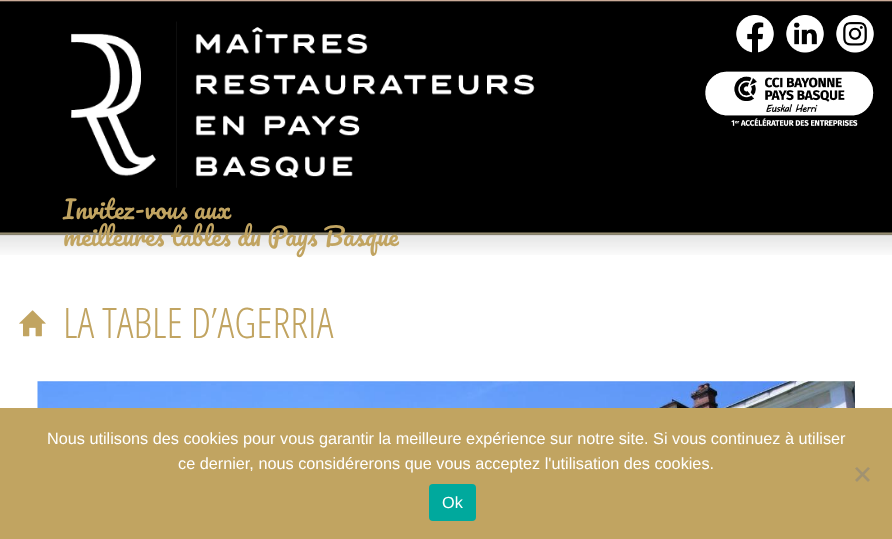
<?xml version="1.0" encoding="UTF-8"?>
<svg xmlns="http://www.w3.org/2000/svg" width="892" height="539">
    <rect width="100%" height="100%" fill="#FFFFFF"/>
    <image x="0" y="0" width="892" height="255" href="img_01.png"/>
    <image x="736" y="15" width="38" height="38" href="img_02.png"/>
    <image x="786" y="15" width="38" height="38" href="img_03.png"/>
    <image x="836" y="15" width="38" height="38" href="img_04.png"/>
    <image x="705" y="71" width="169" height="56" href="img_05.png"/>
    <image x="71" y="21" width="464" height="167" href="img_06.png"/>
    <text font-family="Pacifico" font-size="24.5" fill="#C1A461">
        <tspan x="63" y="219">Invitez-vous aux</tspan>
        <tspan x="63" y="246">meilleures tables du Pays Basque</tspan>
    </text>
    <image x="19" y="310" width="27" height="27" href="img_07.png"/>
    <text x="63" y="338" font-family="Open Sans Condensed" font-size="42" font-weight="300" fill="#C1A461">LA TABLE D’AGERRIA</text>
    <image x="37" y="381" width="818" height="27" href="img_08.png"/>
    <rect x="0" y="408" width="892" height="131" fill="#C1A461"/>
    <text x="47" y="444" font-family="Liberation Sans" font-size="16.25" fill="#FFFFFF">Nous utilisons des cookies pour vous garantir la meilleure expérience sur notre site. Si vous continuez à utiliser</text>
    <text x="178" y="469" font-family="Liberation Sans" font-size="16.25" fill="#FFFFFF">ce dernier, nous considérerons que vous acceptez l'utilisation des cookies.</text>
    <path d="M 868 467 L 870 468.5 L 857 482 L 855 480 Z" fill="#A19271"/>
    <path d="M 855 468.5 L 857 467 L 870 480 L 868 482 Z" fill="#A19271"/>
    <rect x="429" y="484" width="47" height="37" rx="4" fill="#00A99D"/>
    <text x="442" y="508" font-family="Liberation Sans" font-size="16.25" fill="#FFFFFF">Ok</text>
</svg>
